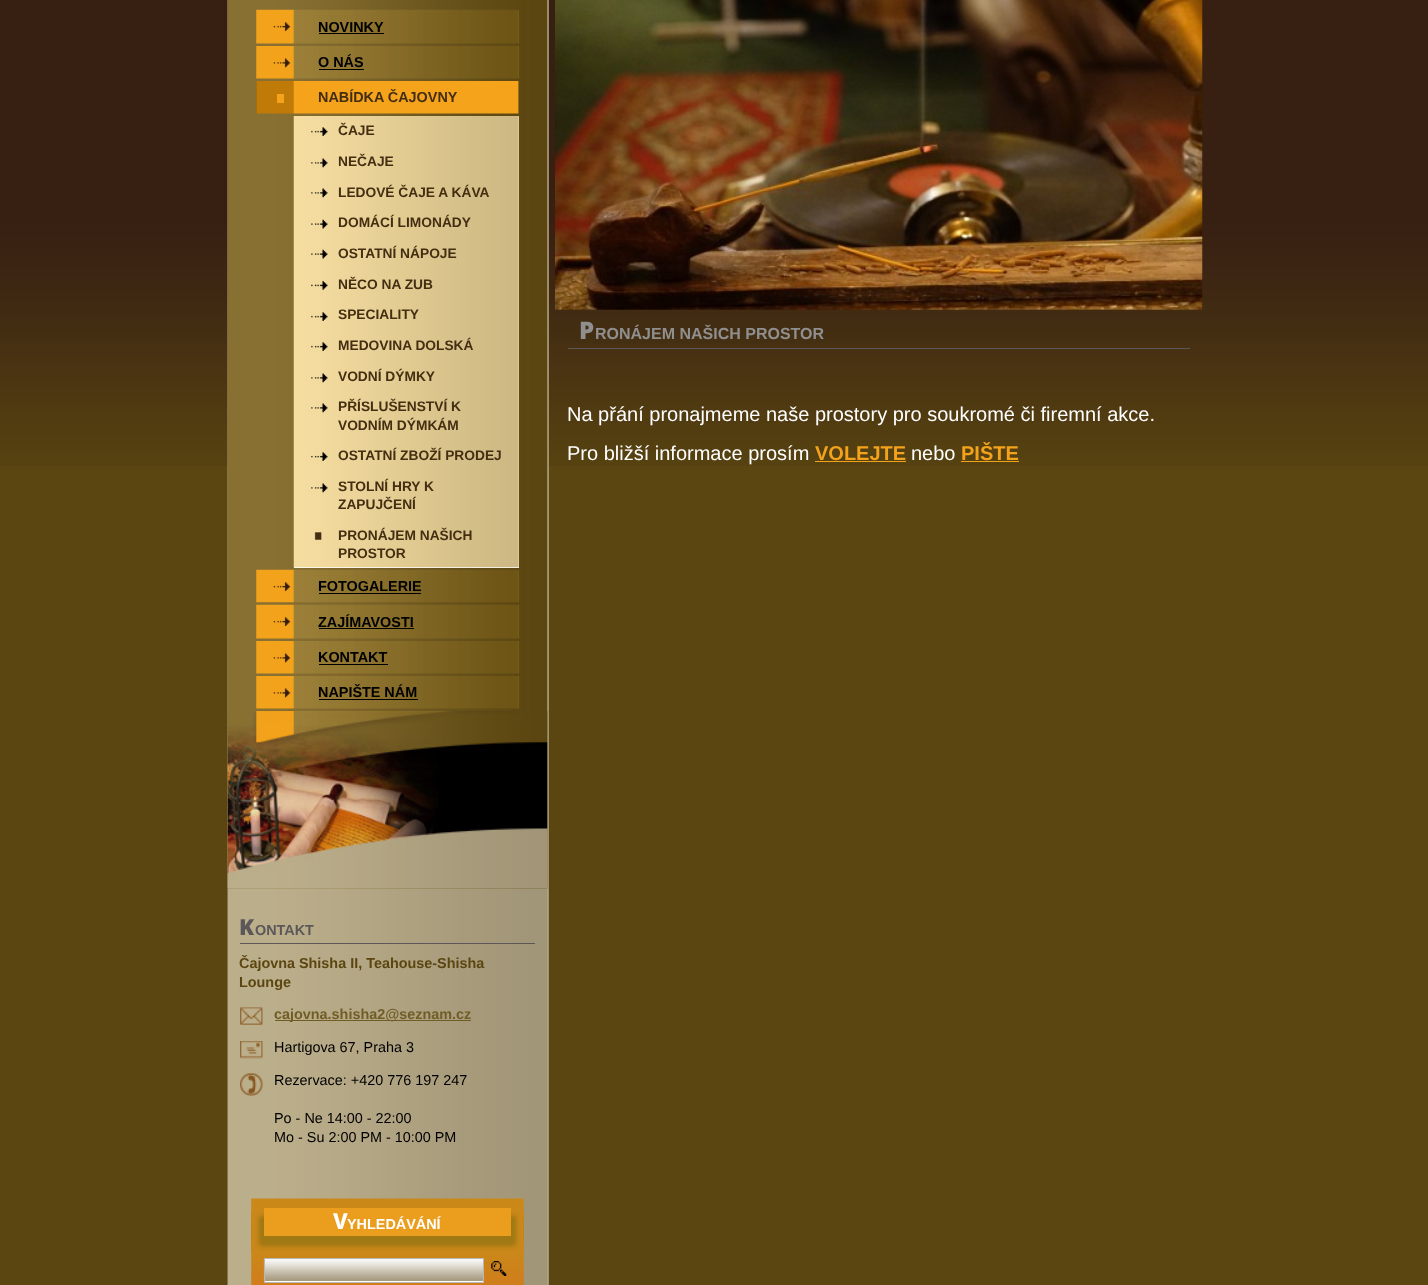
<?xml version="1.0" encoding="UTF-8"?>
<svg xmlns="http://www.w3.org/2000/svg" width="1428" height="1285">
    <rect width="100%" height="100%" fill="#5B4611"/>
    <image x="0" y="0" width="1428" height="466" href="img_01.png"/>
    <image x="227" y="0" width="322" height="1285" href="img_02.png"/>
    <image x="227" y="0" width="321" height="889" href="img_03.png"/>
    <image x="256" y="9" width="263" height="35" href="img_04.png"/>
    <image x="273" y="22" width="18" height="9" href="img_05.png"/>
    <text x="318" y="32" font-family="Liberation Sans" font-size="14.4" font-weight="700" fill="#000000">NOVINKY</text>
    <rect x="319" y="33" width="65" height="1" fill="#000000"/>
    <image x="256" y="46" width="263" height="33" href="img_06.png"/>
    <image x="273" y="58" width="18" height="10" href="img_07.png"/>
    <text x="318" y="67" font-family="Liberation Sans" font-size="14.4" font-weight="700" fill="#000000">O NÁS</text>
    <rect x="319" y="69" width="45" height="1" fill="#000000"/>
    <image x="256" y="81" width="263" height="33" href="img_08.png"/>
    <rect x="277" y="94" width="7" height="9" fill="#F5A31B"/>
    <text x="318" y="102" font-family="Liberation Sans" font-size="14.4" font-weight="700" fill="#442E12">NABÍDKA ČAJOVNY</text>
    <rect x="294" y="116" width="225" height="452" fill="#FFFFFF"/>
    <image x="293" y="116" width="226" height="452" href="img_09.png"/>
    <image x="311" y="127" width="17" height="9" href="img_10.png"/>
    <text x="338" y="135" font-family="Liberation Sans" font-size="13.75" font-weight="700" fill="#442E12">ČAJE</text>
    <image x="311" y="158" width="17" height="10" href="img_11.png"/>
    <text x="338" y="166" font-family="Liberation Sans" font-size="13.75" font-weight="700" fill="#442E12">NEČAJE</text>
    <image x="311" y="188" width="17" height="10" href="img_11.png"/>
    <text x="338" y="197" font-family="Liberation Sans" font-size="13.75" font-weight="700" fill="#442E12">LEDOVÉ ČAJE A KÁVA</text>
    <image x="311" y="219" width="17" height="10" href="img_12.png"/>
    <text x="338" y="227" font-family="Liberation Sans" font-size="13.75" font-weight="700" fill="#442E12">DOMÁCÍ LIMONÁDY</text>
    <image x="311" y="249" width="17" height="10" href="img_12.png"/>
    <text x="338" y="258" font-family="Liberation Sans" font-size="13.75" font-weight="700" fill="#442E12">OSTATNÍ NÁPOJE</text>
    <image x="311" y="280" width="17" height="10" href="img_13.png"/>
    <text x="338" y="289" font-family="Liberation Sans" font-size="13.75" font-weight="700" fill="#442E12">NĚCO NA ZUB</text>
    <image x="311" y="312" width="17" height="9" href="img_10.png"/>
    <text x="338" y="319" font-family="Liberation Sans" font-size="13.75" font-weight="700" fill="#442E12">SPECIALITY</text>
    <image x="311" y="342" width="17" height="9" href="img_10.png"/>
    <text x="338" y="350" font-family="Liberation Sans" font-size="13.75" font-weight="700" fill="#442E12">MEDOVINA DOLSKÁ</text>
    <image x="311" y="373" width="17" height="10" href="img_11.png"/>
    <text x="338" y="381" font-family="Liberation Sans" font-size="13.75" font-weight="700" fill="#442E12">VODNÍ DÝMKY</text>
    <image x="311" y="403" width="17" height="10" href="img_11.png"/>
    <text font-family="Liberation Sans" font-size="13.75" font-weight="700" fill="#442E12">
        <tspan x="338" y="411">PŘÍSLUŠENSTVÍ K</tspan>
        <tspan x="338" y="430">VODNÍM DÝMKÁM</tspan>
    </text>
    <image x="311" y="452" width="17" height="9" href="img_10.png"/>
    <text x="338" y="460" font-family="Liberation Sans" font-size="13.75" font-weight="700" fill="#442E12">OSTATNÍ ZBOŽÍ PRODEJ</text>
    <image x="311" y="483" width="17" height="10" href="img_11.png"/>
    <text font-family="Liberation Sans" font-size="13.75" font-weight="700" fill="#442E12">
        <tspan x="338" y="491">STOLNÍ HRY K</tspan>
        <tspan x="338" y="509">ZAPUJČENÍ</tspan>
    </text>
    <image x="314" y="532" width="8" height="8" href="img_14.png"/>
    <text font-family="Liberation Sans" font-size="13.75" font-weight="700" fill="#442E12">
        <tspan x="338" y="540">PRONÁJEM NAŠICH</tspan>
        <tspan x="338" y="558">PROSTOR</tspan>
    </text>
    <image x="256" y="569" width="263" height="34" href="img_15.png"/>
    <image x="273" y="582" width="18" height="9" href="img_05.png"/>
    <text x="318" y="591" font-family="Liberation Sans" font-size="14.4" font-weight="700" fill="#000000">FOTOGALERIE</text>
    <rect x="319" y="593" width="102" height="1" fill="#000000"/>
    <image x="256" y="604" width="263" height="35" href="img_16.png"/>
    <image x="273" y="617" width="18" height="9" href="img_05.png"/>
    <text x="318" y="627" font-family="Liberation Sans" font-size="14.4" font-weight="700" fill="#000000">ZAJÍMAVOSTI</text>
    <rect x="319" y="628" width="95" height="1" fill="#000000"/>
    <image x="256" y="641" width="263" height="33" href="img_17.png"/>
    <image x="273" y="653" width="18" height="10" href="img_07.png"/>
    <text x="318" y="662" font-family="Liberation Sans" font-size="14.4" font-weight="700" fill="#000000">KONTAKT</text>
    <rect x="319" y="664" width="69" height="1" fill="#000000"/>
    <image x="256" y="676" width="263" height="33" href="img_18.png"/>
    <image x="273" y="688" width="18" height="10" href="img_07.png"/>
    <text x="318" y="697" font-family="Liberation Sans" font-size="14.4" font-weight="700" fill="#000000">NAPIŠTE NÁM</text>
    <rect x="319" y="699" width="99" height="1" fill="#000000"/>
    <image x="227" y="711" width="321" height="178" href="img_19.png"/>
    <rect x="240" y="943" width="295" height="1" fill="#5C5859"/>
    <text x="239" y="935" font-family="Noto Sans" font-size="22" font-weight="900" fill="#5C5859">K</text>
    <text x="255" y="935" font-family="Liberation Sans" font-size="14.4" font-weight="700" fill="#5C5859">ONTAKT</text>
    <text font-family="Liberation Sans" font-size="14.4" font-weight="700" fill="#5B4611">
        <tspan x="239" y="968">Čajovna Shisha II, Teahouse-Shisha</tspan>
        <tspan x="239" y="987">Lounge</tspan>
    </text>
    <image x="240" y="1007" width="23" height="18" href="img_20.png"/>
    <rect x="275" y="1020" width="196" height="1" fill="#705D26"/>
    <text x="274" y="1019" font-family="Liberation Sans" font-size="14.4" font-weight="700" fill="#705D26">cajovna.shisha2@seznam.cz</text>
    <image x="240" y="1041" width="23" height="18" href="img_21.png"/>
    <text x="274" y="1052" font-family="Liberation Sans" font-size="14.4" fill="#000000">Hartigova 67, Praha 3</text>
    <image x="240" y="1073" width="23" height="23" href="img_22.png"/>
    <text x="274" y="1085" font-family="Liberation Sans" font-size="14.4" fill="#000000">Rezervace: +420 776 197 247</text>
    <text font-family="Liberation Sans" font-size="14.4" fill="#000000">
        <tspan x="274" y="1123">Po - Ne 14:00 - 22:00</tspan>
        <tspan x="274" y="1142">Mo - Su 2:00 PM - 10:00 PM</tspan>
    </text>
    <image x="251" y="1198" width="273" height="87" href="img_23.png"/>
    <rect x="251" y="1211" width="273" height="40" fill="#A07814"/>
    <image x="251" y="1211" width="273" height="40" href="img_24.png"/>
    <image x="251" y="1211" width="273" height="10" href="img_25.png"/>
    <rect x="264" y="1208" width="247" height="28" fill="#EB9E1D"/>
    <text x="333" y="1229" font-family="Noto Sans" font-size="22" font-weight="800" fill="#FFFFFF">V</text>
    <text x="347" y="1229" font-family="Liberation Sans" font-size="14.4" font-weight="700" fill="#FFFFFF">YHLEDÁVÁNÍ</text>
    <image x="251" y="1241" width="273" height="10" href="img_26.png"/>
    <rect x="265" y="1281" width="218" height="1" fill="#FFFFFF"/>
    <image x="263" y="1258" width="220" height="23" href="img_27.png"/>
    <rect x="264.5" y="1258.5" width="219" height="24" fill="none" stroke="#B8B8B8"/>
    <image x="491" y="1261" width="16" height="15" href="img_28.png"/>
    <image x="555" y="0" width="648" height="310" href="img_29.png"/>
    <rect x="568" y="348" width="622" height="1" fill="#5A5859"/>
    <text x="579" y="339" font-family="Noto Sans" font-size="24" font-weight="900" fill="#8F8F8F">P</text>
    <text x="595" y="339" font-family="Liberation Sans" font-size="16" font-weight="700" fill="#8F8F8F">RONÁJEM NAŠICH PROSTOR</text>
    <text font-family="Liberation Sans" font-size="20" fill="#FFFFFF">
        <tspan x="567" y="421">Na přání pronajmeme naše prostory pro soukromé či firemní akce.</tspan>
        <tspan x="567" y="460">Pro bližší informace prosím</tspan>
    </text>
    <text x="815" y="460" font-family="Liberation Sans" font-size="20" font-weight="700" fill="#F3A21C">VOLEJTE</text>
    <rect x="815" y="461" width="91" height="1" fill="#F3A21C"/>
    <text x="911" y="460" font-family="Liberation Sans" font-size="20" fill="#FFFFFF">nebo</text>
    <text x="961" y="460" font-family="Liberation Sans" font-size="20" font-weight="700" fill="#F3A21C">PIŠTE</text>
    <rect x="961" y="461" width="58" height="1" fill="#F3A21C"/>
</svg>
